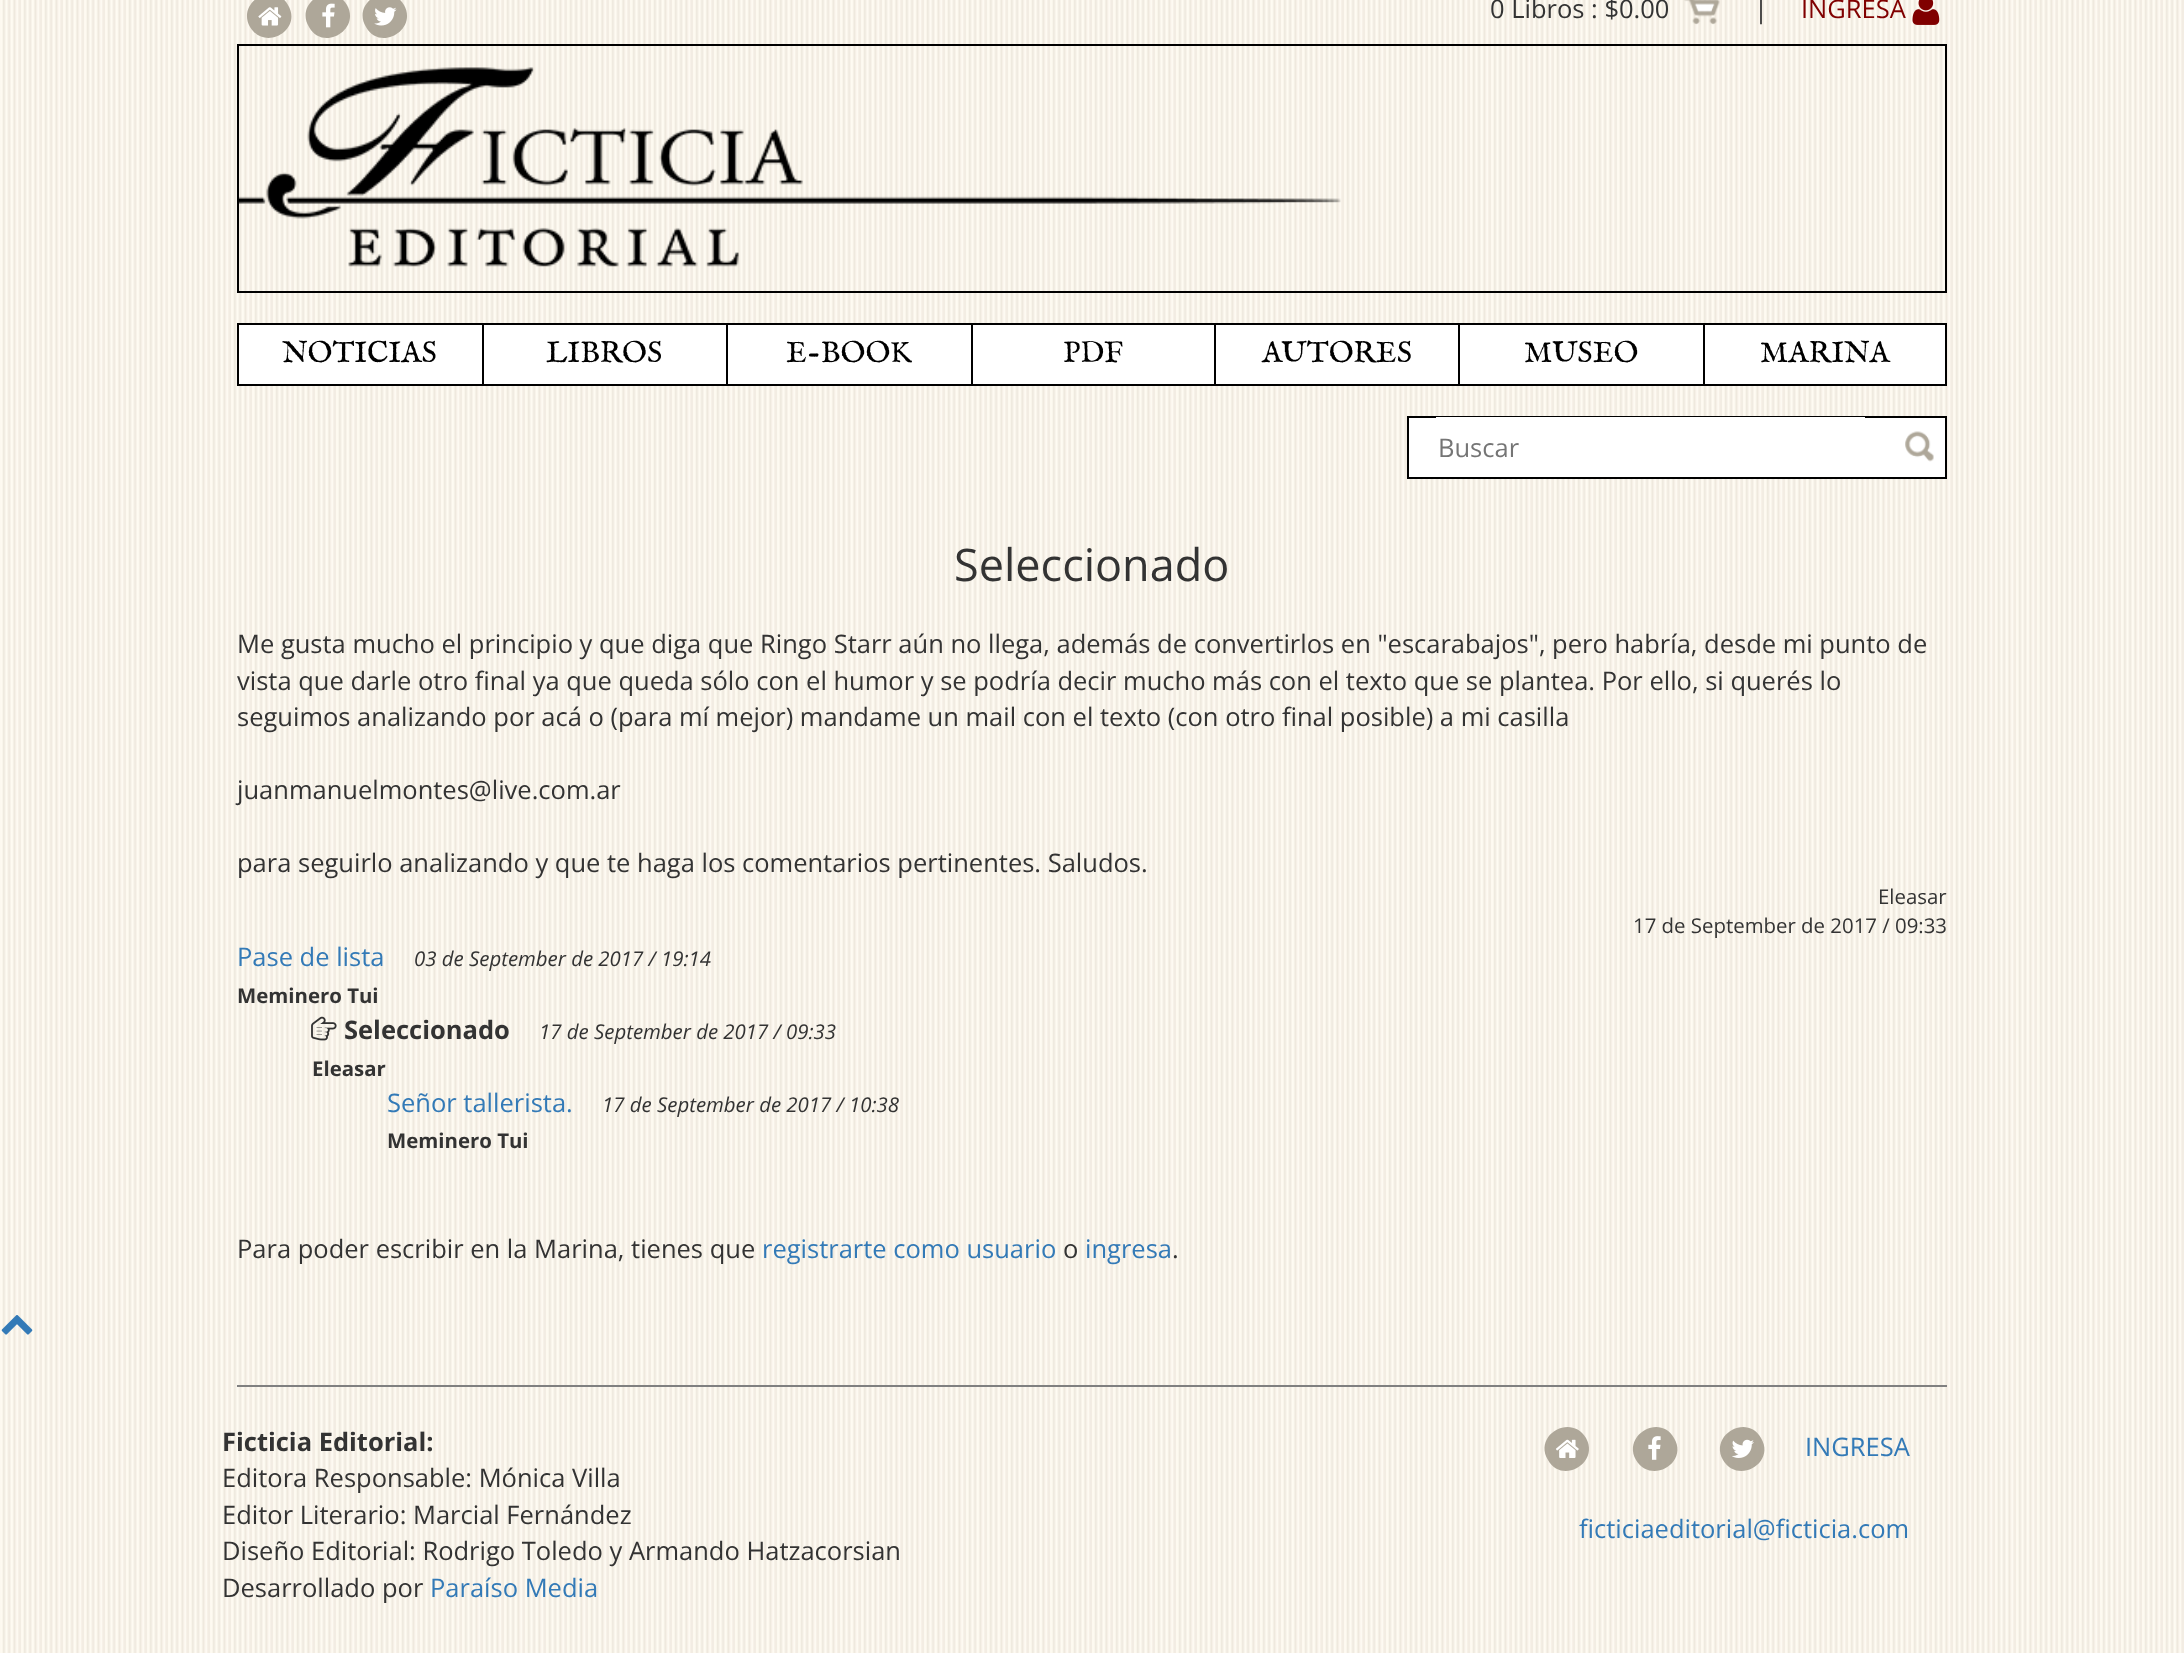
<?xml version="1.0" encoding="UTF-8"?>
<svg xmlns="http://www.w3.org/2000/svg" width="2184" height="1653">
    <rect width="100%" height="100%" fill="#FFFFFF"/>
    <image x="0" y="0" width="2184" height="1653" href="img_01.png"/>
    <path d="M 288 5 C 303 30 265 52 250 27 C 236 2 274 -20 288 5 Z" fill="#AEA799"/>
    <image x="258" y="7" width="24" height="19" href="img_02.png"/>
    <path d="M 347 5 C 361 30 323 52 309 27 C 294 2 332 -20 347 5 Z" fill="#AEA799"/>
    <image x="322" y="3" width="13" height="25" href="img_03.png"/>
    <path d="M 404 5 C 418 30 380 52 366 27 C 351 2 389 -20 404 5 Z" fill="#AEA799"/>
    <image x="374" y="7" width="23" height="19" href="img_04.png"/>
    <text x="1490" y="18" font-family="Open Sans" font-size="25.5" fill="#333333">0 Libros : $0.00</text>
    <image x="1684" y="0" width="36" height="25" href="img_05.png"/>
    <text x="1754" y="18" font-family="Open Sans" font-size="25.5" fill="#333333">|</text>
    <text x="1801" y="18" font-family="Open Sans" font-size="25.5" fill="#800000">INGRESA</text>
    <image x="1912" y="0" width="28" height="25" href="img_06.png"/>
    <rect x="238" y="45" width="1708" height="247" fill="none" stroke="#000000" stroke-width="2"/>
    <image x="239" y="67" width="1102" height="200" href="img_07.png"/>
    <rect x="239" y="325" width="243" height="59" fill="#FFFFFF"/>
    <rect x="237" y="323" width="1466" height="2" fill="#000000"/>
    <rect x="237" y="384" width="1466" height="2" fill="#000000"/>
    <rect x="237" y="323" width="2" height="63" fill="#000000"/>
    <text x="282" y="362" font-family="IM FELL English" font-size="30" fill="#000000">NOTICIAS</text>
    <rect x="484" y="325" width="242" height="59" fill="#FFFFFF"/>
    <rect x="482" y="323" width="2" height="63" fill="#000000"/>
    <text x="546" y="362" font-family="IM FELL English" font-size="30" fill="#000000">LIBROS</text>
    <rect x="728" y="325" width="243" height="59" fill="#FFFFFF"/>
    <rect x="726" y="323" width="2" height="63" fill="#000000"/>
    <text x="786" y="362" font-family="IM FELL English" font-size="30" fill="#000000">E-BOOK</text>
    <rect x="973" y="325" width="241" height="59" fill="#FFFFFF"/>
    <rect x="971" y="323" width="2" height="63" fill="#000000"/>
    <text x="1063" y="362" font-family="IM FELL English" font-size="30" fill="#000000">PDF</text>
    <rect x="1216" y="325" width="242" height="59" fill="#FFFFFF"/>
    <rect x="1214" y="323" width="2" height="63" fill="#000000"/>
    <text x="1262" y="362" font-family="IM FELL English" font-size="30" fill="#000000">AUTORES</text>
    <rect x="1460" y="325" width="243" height="59" fill="#FFFFFF"/>
    <rect x="1458" y="323" width="2" height="63" fill="#000000"/>
    <text x="1524" y="362" font-family="IM FELL English" font-size="30" fill="#000000">MUSEO</text>
    <rect x="1704" y="324" width="242" height="61" fill="#FFFFFF" stroke="#000000" stroke-width="2"/>
    <text x="1760" y="362" font-family="IM FELL English" font-size="30" fill="#000000">MARINA</text>
    <rect x="1408" y="417" width="538" height="61" fill="#FFFFFF" stroke="#000000" stroke-width="2"/>
    <rect x="1436" y="417" width="429" height="1" fill="#FFFFFF"/>
    <text x="1438" y="457" font-family="Open Sans" font-size="25.5" fill="#757575">Buscar</text>
    <image x="1905" y="431" width="29" height="31" href="img_08.png"/>
    <text x="954" y="581" font-family="Open Sans" font-size="45" fill="#333333">Seleccionado</text>
    <text font-family="Open Sans" font-size="25.5" fill="#333333">
        <tspan x="237" y="653">Me gusta mucho el principio y que diga que Ringo Starr aún no llega, además de convertirlos en "escarabajos", pero habría, desde mi punto de</tspan>
        <tspan x="237" y="690">vista que darle otro final ya que queda sólo con el humor y se podría decir mucho más con el texto que se plantea. Por ello, si querés lo</tspan>
        <tspan x="237" y="726">seguimos analizando por acá o (para mí mejor) mandame un mail con el texto (con otro final posible) a mi casilla</tspan>
    </text>
    <text x="237" y="799" font-family="Open Sans" font-size="25.5" fill="#333333">juanmanuelmontes@live.com.ar</text>
    <text x="237" y="872" font-family="Open Sans" font-size="25.5" fill="#333333">para seguirlo analizando y que te haga los comentarios pertinentes. Saludos.</text>
    <text x="1878" y="904" font-family="Open Sans" font-size="20.4" fill="#333333">Eleasar</text>
    <text x="1633" y="933" font-family="Open Sans" font-size="20.4" fill="#333333">17 de September de 2017 / 09:33</text>
    <text x="237" y="966" font-family="Open Sans" font-size="25.5" fill="#337AB7">Pase de lista</text>
    <text x="414" y="966" font-family="Open Sans" font-size="20.4" font-style="italic" fill="#333333">03 de September de 2017 / 19:14</text>
    <text x="237" y="1003" font-family="Open Sans" font-size="20.4" font-weight="700" fill="#333333">Meminero Tui</text>
    <image x="311" y="1016" width="26" height="25" href="img_09.png"/>
    <text x="344" y="1039" font-family="Open Sans" font-size="25.5" font-weight="700" fill="#333333">Seleccionado</text>
    <text x="539" y="1039" font-family="Open Sans" font-size="20.4" font-style="italic" fill="#333333">17 de September de 2017 / 09:33</text>
    <text x="312" y="1076" font-family="Open Sans" font-size="20.4" font-weight="700" fill="#333333">Eleasar</text>
    <text x="387" y="1112" font-family="Open Sans" font-size="25.5" fill="#337AB7">Señor tallerista.</text>
    <text x="602" y="1112" font-family="Open Sans" font-size="20.4" font-style="italic" fill="#333333">17 de September de 2017 / 10:38</text>
    <text x="387" y="1148" font-family="Open Sans" font-size="20.4" font-weight="700" fill="#333333">Meminero Tui</text>
    <text x="237" y="1258" font-family="Open Sans" font-size="25.5" fill="#333333">Para poder escribir en la Marina, tienes que</text>
    <text x="762" y="1258" font-family="Open Sans" font-size="25.5" fill="#337AB7">registrarte como usuario</text>
    <text x="1063" y="1258" font-family="Open Sans" font-size="25.5" fill="#333333">o</text>
    <text x="1085" y="1258" font-family="Open Sans" font-size="25.5" fill="#337AB7">ingresa</text>
    <text x="1172" y="1258" font-family="Open Sans" font-size="25.5" fill="#333333">.</text>
    <image x="1" y="1315" width="32" height="20" href="img_10.png"/>
    <rect x="237" y="1385" width="1710" height="2" fill="#808080"/>
    <text x="222" y="1451" font-family="Open Sans" font-size="25.5" font-weight="700" fill="#333333">Ficticia Editorial:</text>
    <text font-family="Open Sans" font-size="25.5" fill="#333333">
        <tspan x="222" y="1487">Editora Responsable: Mónica Villa</tspan>
        <tspan x="222" y="1524">Editor Literario: Marcial Fernández</tspan>
        <tspan x="222" y="1560">Diseño Editorial: Rodrigo Toledo y Armando Hatzacorsian</tspan>
        <tspan x="222" y="1597">Desarrollado por</tspan>
    </text>
    <text x="430" y="1597" font-family="Open Sans" font-size="25.5" fill="#337AB7">Paraíso Media</text>
    <path d="M 1586 1438 C 1600 1463 1562 1485 1548 1460 C 1533 1435 1571 1413 1586 1438 Z" fill="#AEA799"/>
    <image x="1556" y="1439" width="23" height="19" href="img_11.png"/>
    <path d="M 1674 1438 C 1689 1463 1651 1485 1636 1460 C 1622 1435 1660 1413 1674 1438 Z" fill="#AEA799"/>
    <image x="1648" y="1436" width="13" height="24" href="img_12.png"/>
    <path d="M 1761 1438 C 1776 1463 1738 1485 1723 1460 C 1709 1435 1747 1413 1761 1438 Z" fill="#AEA799"/>
    <image x="1732" y="1439" width="22" height="19" href="img_13.png"/>
    <text x="1805" y="1456" font-family="Open Sans" font-size="25.5" fill="#337AB7">INGRESA</text>
    <text x="1579" y="1538" font-family="Open Sans" font-size="25.5" fill="#337AB7">ficticiaeditorial@ficticia.com</text>
</svg>
